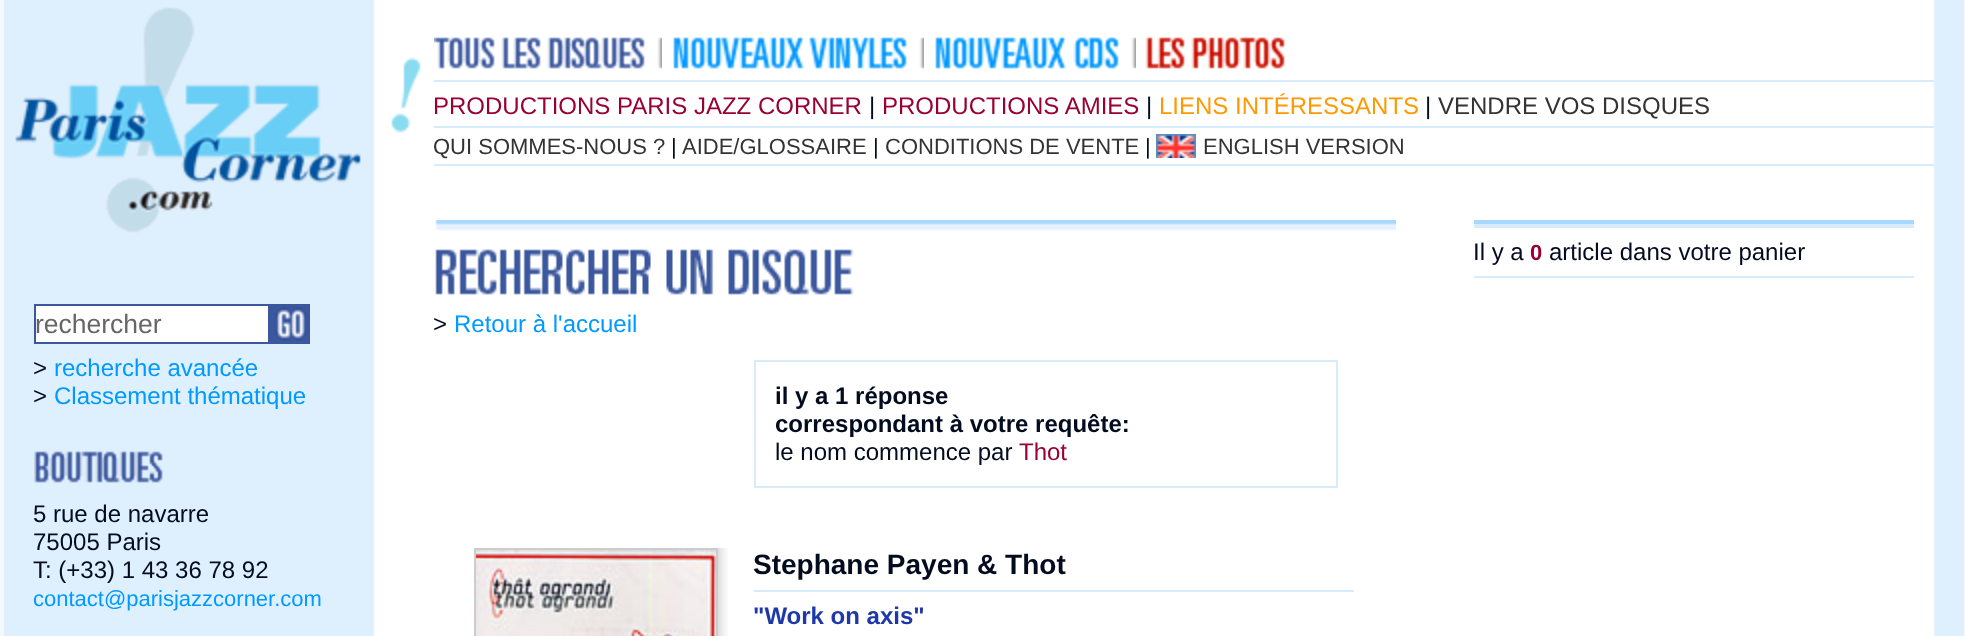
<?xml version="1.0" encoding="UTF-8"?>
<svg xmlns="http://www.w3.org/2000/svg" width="1965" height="636">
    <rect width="100%" height="100%" fill="#F3FAFF"/>
    <image x="4" y="0" width="1960" height="636" href="img_01.png"/>
    <image x="15" y="7" width="346" height="226" href="img_02.png"/>
    <image x="391" y="57" width="30" height="76" href="img_03.png"/>
    <rect x="434" y="80" width="1500" height="2" fill="#D7EBFC"/>
    <image x="434" y="37" width="228" height="32" href="img_04.png"/>
    <image x="673" y="37" width="251" height="32" href="img_05.png"/>
    <image x="935" y="37" width="201" height="32" href="img_06.png"/>
    <image x="1145" y="37" width="140" height="32" href="img_07.png"/>
    <rect x="434" y="126" width="1500" height="2" fill="#D7EBFC"/>
    <text x="433" y="114" font-family="Liberation Sans" font-size="24" fill="#990033">PRODUCTIONS PARIS JAZZ CORNER</text>
    <text x="869" y="114" font-family="Liberation Sans" font-size="24" fill="#030B1E">|</text>
    <text x="882" y="114" font-family="Liberation Sans" font-size="24" fill="#990033">PRODUCTIONS AMIES</text>
    <text x="1146" y="114" font-family="Liberation Sans" font-size="24" fill="#030B1E">|</text>
    <text x="1159" y="114" font-family="Liberation Sans" font-size="24" fill="#FF9900">LIENS INTÉRESSANTS</text>
    <text x="1425" y="114" font-family="Liberation Sans" font-size="24" fill="#030B1E">|</text>
    <text x="1438" y="114" font-family="Liberation Sans" font-size="24" fill="#333333">VENDRE VOS DISQUES</text>
    <rect x="434" y="164" width="1500" height="2" fill="#D7EBFC"/>
    <text x="433" y="154" font-family="Liberation Sans" font-size="22" fill="#333333">QUI SOMMES-NOUS ?</text>
    <text x="671" y="154" font-family="Liberation Sans" font-size="22" fill="#030B1E">|</text>
    <text x="682" y="154" font-family="Liberation Sans" font-size="22" fill="#333333">AIDE/GLOSSAIRE</text>
    <text x="873" y="154" font-family="Liberation Sans" font-size="22" fill="#030B1E">|</text>
    <text x="885" y="154" font-family="Liberation Sans" font-size="22" fill="#333333">CONDITIONS DE VENTE</text>
    <text x="1145" y="154" font-family="Liberation Sans" font-size="22" fill="#030B1E">|</text>
    <image x="1156" y="134" width="40" height="24" href="img_08.png"/>
    <text x="1203" y="154" font-family="Liberation Sans" font-size="22" fill="#333333">ENGLISH VERSION</text>
    <rect x="1474" y="220" width="440" height="4" fill="#A8D7FF"/>
    <rect x="1474" y="276" width="440" height="2" fill="#D7EBFC"/>
    <rect x="1474" y="224" width="440" height="4" fill="#D7EBFC"/>
    <text x="1473" y="260" font-family="Liberation Sans" font-size="24" fill="#030B1E">Il y a</text>
    <text x="1530" y="260" font-family="Liberation Sans" font-size="22" font-weight="700" fill="#990033">0</text>
    <text x="1549" y="260" font-family="Liberation Sans" font-size="24" fill="#030B1E">article dans votre panier</text>
    <rect x="35" y="305" width="234" height="38" fill="#FFFFFF" stroke="#3B579E" stroke-width="2"/>
    <text x="35" y="333" font-family="Liberation Sans" font-size="26.5" fill="#666666">rechercher</text>
    <image x="270" y="304" width="40" height="40" href="img_09.png"/>
    <text x="33" y="376" font-family="Liberation Sans" font-size="24" fill="#030B1E">&gt;</text>
    <text x="54" y="376" font-family="Liberation Sans" font-size="24" fill="#0099FF">recherche avancée</text>
    <text x="33" y="404" font-family="Liberation Sans" font-size="24" fill="#030B1E">&gt;</text>
    <text x="54" y="404" font-family="Liberation Sans" font-size="24" fill="#0099FF">Classement thématique</text>
    <image x="34" y="451" width="129" height="32" href="img_10.png"/>
    <text font-family="Liberation Sans" font-size="24" fill="#030B1E">
        <tspan x="33" y="522">5 rue de navarre</tspan>
        <tspan x="33" y="550">75005 Paris</tspan>
        <tspan x="33" y="578">T: (+33) 1 43 36 78 92</tspan>
    </text>
    <text x="33" y="606" font-family="Liberation Sans" font-size="22" fill="#0099FF">contact@parisjazzcorner.com</text>
    <image x="435" y="220" width="961" height="75" href="img_11.png"/>
    <text x="433" y="332" font-family="Liberation Sans" font-size="24" fill="#030B1E">&gt;</text>
    <text x="454" y="332" font-family="Liberation Sans" font-size="24" fill="#0099FF">Retour à l'accueil</text>
    <rect x="755" y="361" width="582" height="126" fill="none" stroke="#D7EBFC" stroke-width="2"/>
    <text font-family="Liberation Sans" font-size="24" font-weight="700" fill="#030B1E">
        <tspan x="775" y="404">il y a 1 réponse</tspan>
        <tspan x="775" y="432">correspondant à votre requête:</tspan>
    </text>
    <text x="775" y="460" font-family="Liberation Sans" font-size="24" fill="#030B1E">le nom commence par</text>
    <text x="1019" y="460" font-family="Liberation Sans" font-size="24" fill="#990033">Thot</text>
    <image x="718" y="548" width="10" height="88" href="img_12.png"/>
    <rect x="475" y="549" width="242" height="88" fill="none" stroke="#CCCCCC" stroke-width="2"/>
    <image x="476" y="550" width="240" height="86" href="img_13.png"/>
    <text x="753" y="574" font-family="Liberation Sans" font-size="28" font-weight="700" fill="#030B1E">Stephane Payen &amp; Thot</text>
    <rect x="754" y="590" width="600" height="2" fill="#D7EBFC"/>
    <text x="753" y="624" font-family="Liberation Sans" font-size="24" font-weight="700" fill="#1E38A8">"Work on axis"</text>
</svg>
